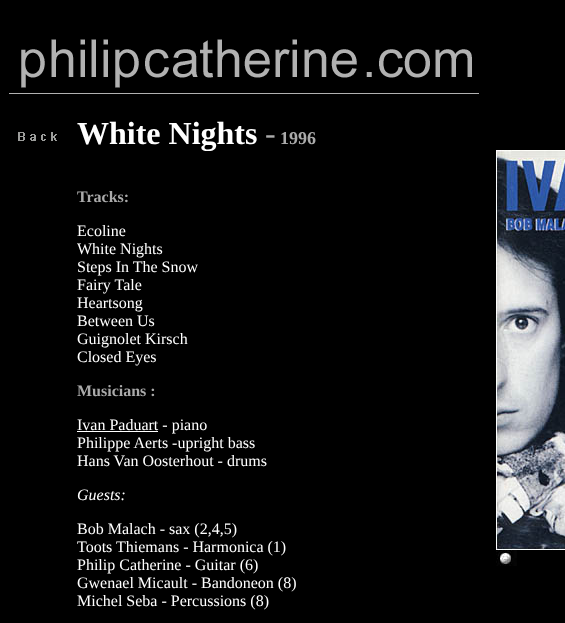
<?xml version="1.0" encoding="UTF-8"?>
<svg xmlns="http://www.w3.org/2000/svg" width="565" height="623">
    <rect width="100%" height="100%" fill="#000000"/>
    <image x="9" y="39" width="470" height="55" href="img_01.png"/>
    <image x="18" y="132" width="39" height="9" href="img_02.png"/>
    <text x="77" y="144" font-family="Liberation Serif" font-size="32" font-weight="700" fill="#FFFFFF">White Nights</text>
    <text x="265" y="144" font-family="Liberation Serif" font-size="32" fill="#AAAAAA">-</text>
    <text x="280" y="144" font-family="Liberation Serif" font-size="18" font-weight="700" fill="#AAAAAA">1996</text>
    <text x="77" y="202" font-family="Liberation Serif" font-size="16" font-weight="700" fill="#AAAAAA">Tracks:</text>
    <text font-family="Liberation Serif" font-size="16" fill="#FFFFFF">
        <tspan x="77" y="236">Ecoline</tspan>
        <tspan x="77" y="254">White Nights</tspan>
        <tspan x="77" y="272">Steps In The Snow</tspan>
        <tspan x="77" y="290">Fairy Tale</tspan>
        <tspan x="77" y="308">Heartsong</tspan>
        <tspan x="77" y="326">Between Us</tspan>
        <tspan x="77" y="344">Guignolet Kirsch</tspan>
        <tspan x="77" y="362">Closed Eyes</tspan>
    </text>
    <text x="77" y="396" font-family="Liberation Serif" font-size="16" font-weight="700" fill="#AAAAAA">Musicians :</text>
    <rect x="77" y="431" width="81" height="1" fill="#FFFFFF"/>
    <text font-family="Liberation Serif" font-size="16" fill="#FFFFFF">
        <tspan x="77" y="430">Ivan Paduart - piano</tspan>
        <tspan x="77" y="448">Philippe Aerts -upright bass</tspan>
        <tspan x="77" y="466">Hans Van Oosterhout - drums</tspan>
    </text>
    <text x="77" y="500" font-family="Liberation Serif" font-size="16" font-style="italic" fill="#FFFFFF">Guests:</text>
    <text font-family="Liberation Serif" font-size="16" fill="#FFFFFF">
        <tspan x="77" y="534">Bob Malach - sax (2,4,5)</tspan>
        <tspan x="77" y="552">Toots Thiemans - Harmonica (1)</tspan>
        <tspan x="77" y="570">Philip Catherine - Guitar (6)</tspan>
        <tspan x="77" y="588">Gwenael Micault - Bandoneon (8)</tspan>
        <tspan x="77" y="606">Michel Seba - Percussions (8)</tspan>
    </text>
    <image x="496" y="150" width="69" height="400" href="img_03.png"/>
    <image x="496" y="550" width="21" height="16" href="img_04.png"/>
</svg>
